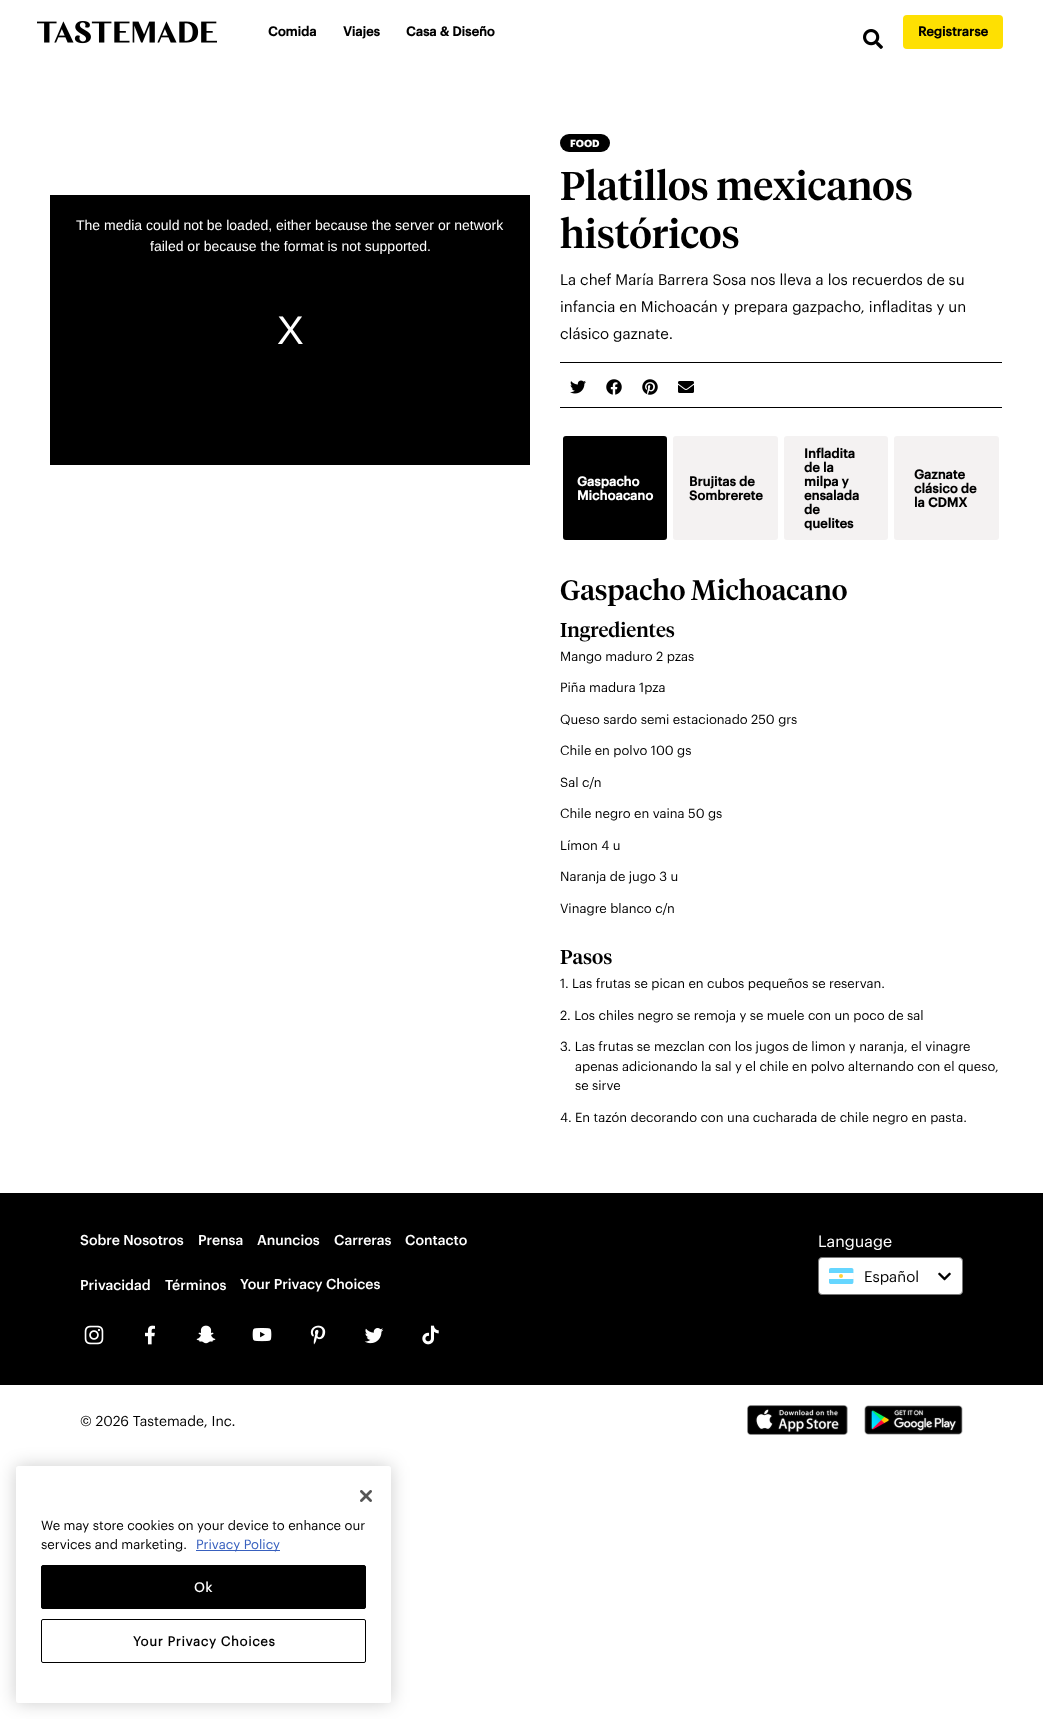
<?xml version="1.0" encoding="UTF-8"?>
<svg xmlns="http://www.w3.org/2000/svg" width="1043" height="1719">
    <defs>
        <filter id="blur1" x="-50%" y="-200%" width="200%" height="500%"><feGaussianBlur stdDeviation="9"/></filter>
    </defs>
    <rect width="100%" height="100%" fill="#FFFFFF"/>
    <image x="37" y="21" width="180" height="23" href="img_01.png"/>
    <text x="268" y="36" font-family="'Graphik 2'" font-size="13" font-weight="700" fill="#000000">Comida</text>
    <text x="343" y="36" font-family="'Graphik 2'" font-size="13" font-weight="700" fill="#000000">Viajes</text>
    <text x="406" y="36" font-family="'Graphik 2'" font-size="13" font-weight="700" fill="#000000">Casa &amp; Diseño</text>
    <rect x="903" y="15" width="100" height="34" rx="4" fill="#FEE002"/>
    <text x="918" y="36" font-family="'Graphik 2'" font-size="13" font-weight="700" fill="#000000">Registrarse</text>
    <image x="863" y="29" width="20" height="20" href="img_02.png"/>
    <rect x="50" y="195" width="480" height="270" fill="#000000"/>
    <text x="76" y="230" font-family="Liberation Sans" font-size="14" fill="#FFFFFF">The media could not be loaded, either because the server or network</text>
    <text x="150" y="251" font-family="Liberation Sans" font-size="14" fill="#FFFFFF">failed or because the format is not supported.</text>
    <text x="277" y="344" font-family="Liberation Sans" font-size="40" fill="#FFFFFF">X</text>
    <rect x="560" y="134" width="50" height="18" rx="9" fill="#000000"/>
    <text x="570" y="147" font-family="Graphik" font-size="10" font-weight="700" fill="#FFFFFF">FOOD</text>
    <text font-family="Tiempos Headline" font-size="40" font-weight="500" fill="#000000">
        <tspan x="560" y="200">Platillos mexicanos</tspan>
        <tspan x="560" y="248">históricos</tspan>
    </text>
    <text font-family="Graphik" font-size="15" fill="#000000">
        <tspan x="560" y="285">La chef María Barrera Sosa nos lleva a los recuerdos de su</tspan>
        <tspan x="560" y="312">infancia en Michoacán y prepara gazpacho, infladitas y un</tspan>
        <tspan x="560" y="339">clásico gaznate.</tspan>
    </text>
    <rect x="560" y="362" width="442" height="1" fill="#000000"/>
    <rect x="560" y="407" width="442" height="1" fill="#000000"/>
    <image x="570" y="380" width="16" height="14" href="img_03.png"/>
    <image x="606" y="379" width="16" height="16" href="img_04.png"/>
    <image x="642" y="379" width="16" height="16" href="img_05.png"/>
    <image x="678" y="381" width="16" height="12" href="img_06.png"/>
    <rect x="561.5" y="434.5" width="107" height="107" rx="4.5" fill="#000000" stroke="#FFFFFF" stroke-width="3"/>
    <text font-family="'Graphik 2'" font-size="13" font-weight="700" fill="#FFFFFF">
        <tspan x="577" y="486">Gaspacho</tspan>
        <tspan x="577" y="500">Michoacano</tspan>
    </text>
    <rect x="671.5" y="434.5" width="108" height="107" rx="4.5" fill="#F4F2F2" stroke="#FFFFFF" stroke-width="3"/>
    <text font-family="'Graphik 2'" font-size="13" font-weight="700" fill="#000000">
        <tspan x="689" y="486">Brujitas de</tspan>
        <tspan x="689" y="500">Sombrerete</tspan>
    </text>
    <rect x="782.5" y="434.5" width="107" height="107" rx="4.5" fill="#F4F2F2" stroke="#FFFFFF" stroke-width="3"/>
    <text font-family="'Graphik 2'" font-size="13" font-weight="700" fill="#000000">
        <tspan x="804" y="458">Infladita</tspan>
        <tspan x="804" y="472">de la</tspan>
        <tspan x="804" y="486">milpa y</tspan>
        <tspan x="804" y="500">ensalada</tspan>
        <tspan x="804" y="514">de</tspan>
        <tspan x="804" y="528">quelites</tspan>
    </text>
    <rect x="892.5" y="434.5" width="108" height="107" rx="4.5" fill="#F4F2F2" stroke="#FFFFFF" stroke-width="3"/>
    <text font-family="'Graphik 2'" font-size="13" font-weight="700" fill="#000000">
        <tspan x="914" y="479">Gaznate</tspan>
        <tspan x="914" y="493">clásico de</tspan>
        <tspan x="914" y="507">la CDMX</tspan>
    </text>
    <text x="560" y="600" font-family="Tiempos Headline" font-size="28" font-weight="500" fill="#000000">Gaspacho Michoacano</text>
    <text x="560" y="637" font-family="Tiempos Headline" font-size="20" font-weight="500" fill="#000000">Ingredientes</text>
    <text x="560" y="661" font-family="Graphik" font-size="13" fill="#000000">Mango maduro 2 pzas</text>
    <text x="560" y="692" font-family="Graphik" font-size="13" fill="#000000">Piña madura 1pza</text>
    <text x="560" y="724" font-family="Graphik" font-size="13" fill="#000000">Queso sardo semi estacionado 250 grs</text>
    <text x="560" y="755" font-family="Graphik" font-size="13" fill="#000000">Chile en polvo 100 gs</text>
    <text x="560" y="787" font-family="Graphik" font-size="13" fill="#000000">Sal c/n</text>
    <text x="560" y="818" font-family="Graphik" font-size="13" fill="#000000">Chile negro en vaina 50 gs</text>
    <text x="560" y="850" font-family="Graphik" font-size="13" fill="#000000">Límon 4 u</text>
    <text x="560" y="881" font-family="Graphik" font-size="13" fill="#000000">Naranja de jugo 3 u</text>
    <text x="560" y="913" font-family="Graphik" font-size="13" fill="#000000">Vinagre blanco c/n</text>
    <text x="560" y="964" font-family="Tiempos Headline" font-size="20" font-weight="500" fill="#000000">Pasos</text>
    <text x="560" y="988" font-family="Graphik" font-size="13" fill="#000000">1. Las frutas se pican en cubos pequeños se reservan.</text>
    <text x="560" y="1020" font-family="Graphik" font-size="13" fill="#000000">2. Los chiles negro se remoja y se muele con un poco de sal</text>
    <text x="560" y="1051" font-family="Graphik" font-size="13" fill="#000000">3. Las frutas se mezclan con los jugos de limon y naranja, el vinagre</text>
    <text font-family="Graphik" font-size="13" fill="#000000">
        <tspan x="575" y="1071">apenas adicionando la sal y el chile en polvo alternando con el queso,</tspan>
        <tspan x="575" y="1090">se sirve</tspan>
    </text>
    <text x="560" y="1122" font-family="Graphik" font-size="13" fill="#000000">4. En tazón decorando con una cucharada de chile negro en pasta.</text>
    <rect x="0" y="1193" width="1043" height="192" fill="#000000"/>
    <text x="80" y="1245" font-family="Graphik" font-size="14" font-weight="500" fill="#FFFFFF">Sobre Nosotros</text>
    <text x="198" y="1245" font-family="Graphik" font-size="14" font-weight="500" fill="#FFFFFF">Prensa</text>
    <text x="257" y="1245" font-family="Graphik" font-size="14" font-weight="500" fill="#FFFFFF">Anuncios</text>
    <text x="334" y="1245" font-family="Graphik" font-size="14" font-weight="500" fill="#FFFFFF">Carreras</text>
    <text x="405" y="1245" font-family="Graphik" font-size="14" font-weight="500" fill="#FFFFFF">Contacto</text>
    <text x="80" y="1290" font-family="Graphik" font-size="14" font-weight="500" fill="#FFFFFF">Privacidad</text>
    <text x="165" y="1290" font-family="Graphik" font-size="14" font-weight="500" fill="#FFFFFF">Términos</text>
    <text x="240" y="1289" font-family="Graphik" font-size="14" font-weight="500" fill="#FFFFFF">Your Privacy Choices</text>
    <image x="84" y="1325" width="20" height="20" href="img_07.png"/>
    <image x="145" y="1325" width="10" height="20" href="img_08.png"/>
    <image x="196" y="1325" width="20" height="19" href="img_09.png"/>
    <image x="252" y="1328" width="20" height="14" href="img_10.png"/>
    <image x="310" y="1325" width="16" height="20" href="img_11.png"/>
    <image x="364" y="1328" width="20" height="16" href="img_12.png"/>
    <image x="422" y="1325" width="17" height="20" href="img_13.png"/>
    <text x="818" y="1247" font-family="Graphik" font-size="16" fill="#FFFFFF">Language</text>
    <rect x="818.5" y="1257.5" width="144" height="37" rx="3.5" fill="#FFFFFF" stroke="#767676"/>
    <image x="829" y="1268" width="25" height="16" href="img_14.png"/>
    <text x="864" y="1282" font-family="Graphik" font-size="15" fill="#000000">Español</text>
    <image x="938" y="1272" width="13" height="9" href="img_15.png"/>
    <text x="80" y="1426" font-family="Graphik" font-size="14" fill="#000000">© 2026 Tastemade, Inc.</text>
    <image x="747" y="1405" width="101" height="30" href="img_16.png"/>
    <image x="864" y="1405" width="99" height="30" href="img_17.png"/>
    <rect x="16" y="1466" width="375" height="237" rx="2.5" fill="#000000" fill-opacity="0.2" filter="url(#blur1)"/>
    <rect x="16" y="1466" width="375" height="237" rx="2.5" fill="#FFFFFF"/>
    <image x="360" y="1490" width="12" height="12" href="img_18.png"/>
    <text font-family="Graphik" font-size="13.1" fill="#000000">
        <tspan x="41" y="1530">We may store cookies on your device to enhance our</tspan>
        <tspan x="41" y="1549">services and marketing.</tspan>
    </text>
    <rect x="196" y="1550" width="84" height="1" fill="#3860BE"/>
    <text x="196" y="1549" font-family="Graphik" font-size="13.1" fill="#3860BE">Privacy Policy</text>
    <rect x="41.5" y="1565.5" width="324" height="43" rx="1.5" fill="#000000" stroke="#000000"/>
    <text x="194" y="1592" font-family="'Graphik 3'" font-size="13.1" font-weight="700" letter-spacing="0.7" fill="#FFFFFF">Ok</text>
    <rect x="41.5" y="1619.5" width="324" height="43" rx="1.5" fill="none" stroke="#000000"/>
    <text x="133" y="1646" font-family="'Graphik 3'" font-size="13.1" font-weight="700" letter-spacing="0.7" fill="#000000">Your Privacy Choices</text>
</svg>
